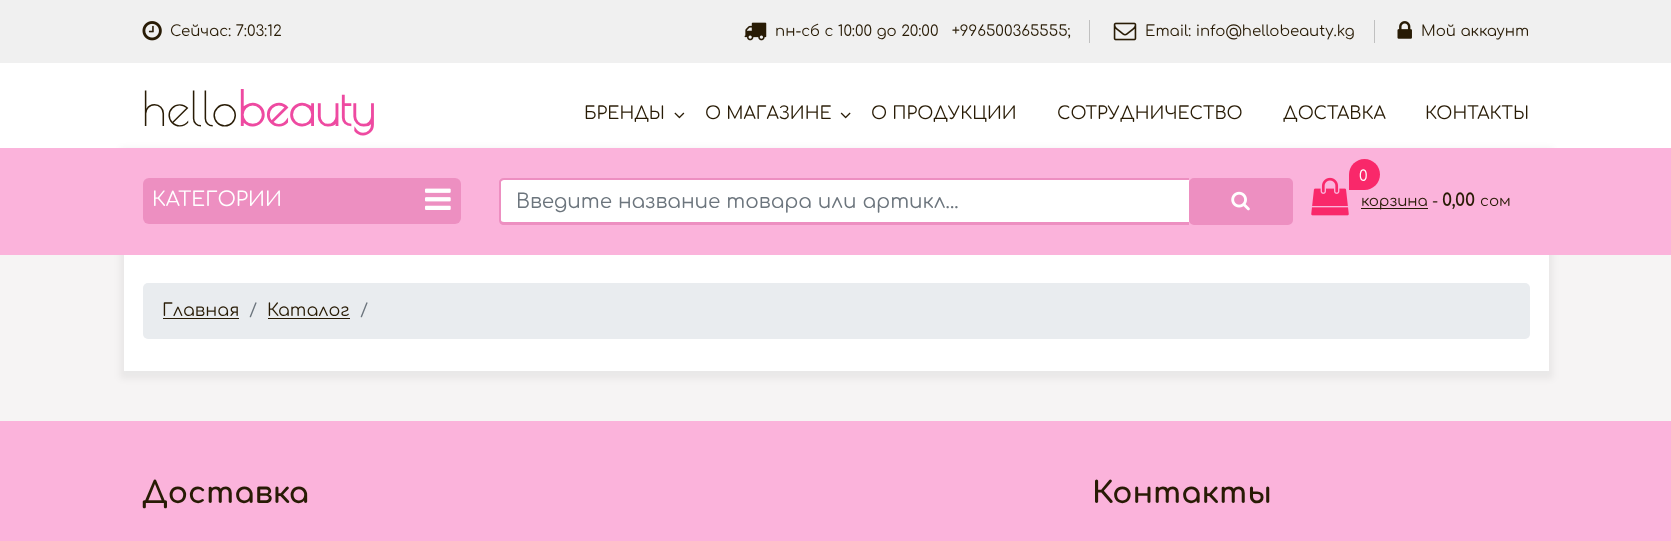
<?xml version="1.0" encoding="UTF-8"?>
<svg xmlns="http://www.w3.org/2000/svg" width="1671" height="541">
    <defs>
        <filter id="blur1" x="-50%" y="-200%" width="200%" height="500%"><feGaussianBlur stdDeviation="3"/></filter>
    </defs>
    <rect width="100%" height="100%" fill="#F6F4F4"/>
    <rect x="0" y="63" width="1671" height="85" fill="#FFFFFF"/>
    <rect x="0" y="0" width="1671" height="63" fill="#F0F0F0"/>
    <image x="142" y="21" width="20" height="20" href="img_01.png"/>
    <text x="170" y="36" font-family="Comfortaa" font-size="15" fill="#281B05">Сейчас: 7:03:12</text>
    <rect x="1089" y="20" width="1" height="23" fill="#C0C0C0"/>
    <image x="744" y="22" width="23" height="19" href="img_02.png"/>
    <text x="775" y="36" font-family="Comfortaa" font-size="15" fill="#281B05" xml:space="preserve">пн-сб c 10:00 до 20:00   +996500365555;</text>
    <rect x="1374" y="20" width="1" height="23" fill="#C0C0C0"/>
    <image x="1113" y="22" width="24" height="19" href="img_03.png"/>
    <text x="1145" y="36" font-family="Comfortaa" font-size="15" fill="#281B05">Email: info@hellobeauty.kg</text>
    <image x="1397" y="21" width="15" height="18" href="img_04.png"/>
    <text x="1421" y="36" font-family="Comfortaa" font-size="15" fill="#281B05">Мой аккаунт</text>
    <text x="142" y="126" font-family="Poiret One" font-size="47.5" fill="#281B05">hello</text>
    <text x="238" y="126" font-family="Poiret One" font-size="47.5" font-weight="700" fill="#EE4AA1">beauty</text>
    <text x="584" y="119" font-family="Comfortaa" font-size="17.5" fill="#281B05">БРЕНДЫ</text>
    <image x="674" y="112" width="11" height="7" href="img_05.png"/>
    <text x="705" y="119" font-family="Comfortaa" font-size="17.5" fill="#281B05">О МАГАЗИНЕ</text>
    <image x="840" y="112" width="11" height="7" href="img_06.png"/>
    <text x="871" y="119" font-family="Comfortaa" font-size="17.5" fill="#281B05">О ПРОДУКЦИИ</text>
    <text x="1057" y="119" font-family="Comfortaa" font-size="17.5" fill="#281B05">CОТРУДНИЧЕСТВО</text>
    <text x="1283" y="119" font-family="Comfortaa" font-size="17.5" fill="#281B05">ДОСТАВКА</text>
    <text x="1425" y="119" font-family="Comfortaa" font-size="17.5" fill="#281B05">КОНТАКТЫ</text>
    <rect x="120" y="148" width="1433" height="231" fill="#000000" fill-opacity="0.05" filter="url(#blur1)"/>
    <rect x="0" y="148" width="1671" height="107" fill="#FBB3DB"/>
    <rect x="143" y="178" width="318" height="46" rx="6" fill="#ED8FC1"/>
    <text x="152" y="206" font-family="Comfortaa" font-size="20" fill="#FFFFFF">КАТЕГОРИИ</text>
    <image x="425" y="188" width="26" height="22" href="img_07.png"/>
    <path d="M 503.5 180 H 1189 V 223 H 503.5 C 502 223 501 222 501 220.5 V 182.5 C 501 181 502 180 503.5 180 Z" fill="#FFFFFF"/>
    <path d="M 504 178 H 1189 V 225 H 504 C 501 225 499 223 499 220 V 182 C 499 180 501 178 504 178 Z M 504 180 H 1189 V 222 H 504 C 502 222 501 221 501 220 V 182 C 501 181 502 180 504 180 Z" fill="#ED8FC1" fill-rule="evenodd"/>
    <text x="516" y="208" font-family="Comfortaa" font-size="20" fill="#6C757D">Введите название товара или артикл...</text>
    <rect x="1190.5" y="179.5" width="101" height="44" rx="3.5" fill="#ED8FC1" stroke="#ED8FC1" stroke-width="3"/>
    <image x="1231" y="191" width="19" height="20" href="img_08.png"/>
    <path d="M 1364.5 159 C 1373 159 1380 166 1380 174.5 C 1380 183 1373 190 1364.5 190 H 1349 V 174.5 C 1349 166 1356 159 1364.5 159 Z" fill="#F9286A"/>
    <text x="1359" y="181" font-family="Comfortaa" font-size="15" fill="#FFFFFF">0</text>
    <image x="1311" y="177" width="38" height="39" href="img_09.png"/>
    <rect x="1361" y="208" width="67" height="1" fill="#281B05"/>
    <text x="1361" y="206" font-family="Comfortaa" font-size="15" fill="#281B05">корзина -</text>
    <text x="1442" y="206" font-family="Comfortaa" font-size="17.5" font-weight="700" fill="#281B05">0,00</text>
    <text x="1480" y="206" font-family="Comfortaa" font-size="15" fill="#281B05">сом</text>
    <rect x="124" y="255" width="1425" height="116" fill="#FFFFFF"/>
    <rect x="143" y="283" width="1387" height="56" rx="5" fill="#E9ECEF"/>
    <text x="162" y="316" font-family="Comfortaa" font-size="17.5" fill="#281B05">Главная</text>
    <rect x="163" y="318" width="76" height="1" fill="#281B05"/>
    <text x="249" y="316" font-family="Comfortaa" font-size="17.5" fill="#6C757D">/</text>
    <text x="267" y="316" font-family="Comfortaa" font-size="17.5" fill="#281B05">Каталог</text>
    <rect x="268" y="318" width="82" height="1" fill="#281B05"/>
    <text x="360" y="316" font-family="Comfortaa" font-size="17.5" fill="#6C757D">/</text>
    <rect x="0" y="421" width="1671" height="120" fill="#FBB3DB"/>
    <text x="142" y="503" font-family="Comfortaa" font-size="30" font-weight="700" fill="#281B05">Доставка</text>
    <text x="1092" y="503" font-family="Comfortaa" font-size="30" font-weight="700" fill="#281B05">Контакты</text>
</svg>
